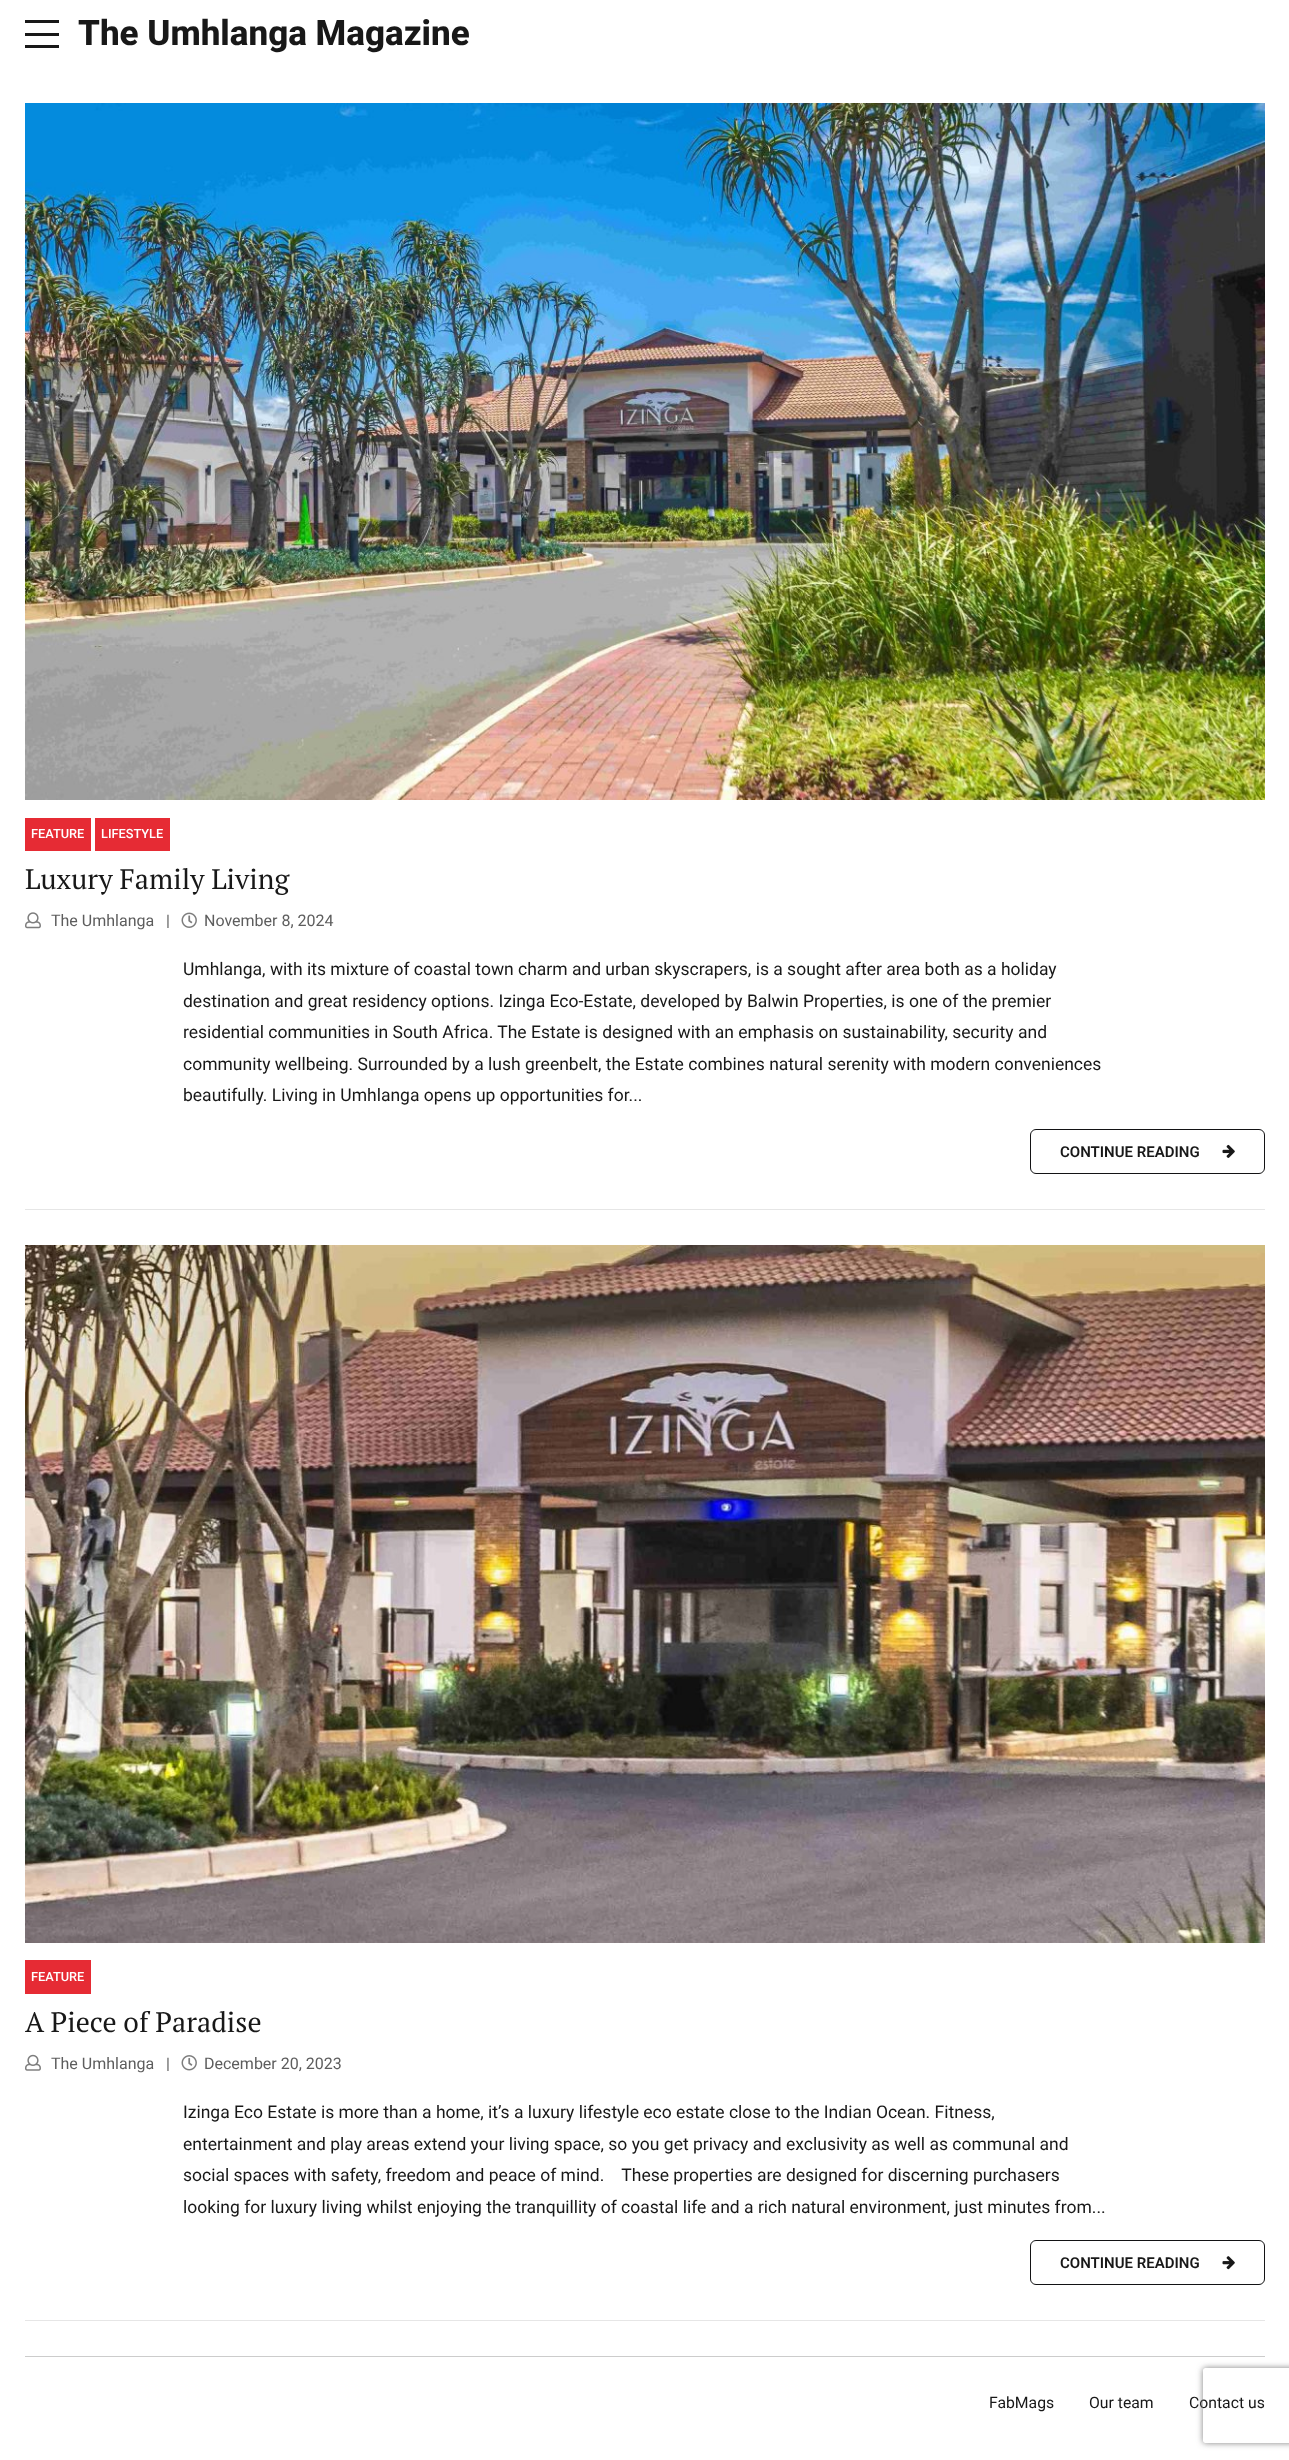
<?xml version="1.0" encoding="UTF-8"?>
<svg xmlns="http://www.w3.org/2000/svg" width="1289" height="2460">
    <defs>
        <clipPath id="clip1"><path d="M 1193 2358 H 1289 V 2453 H 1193 Z M 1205.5 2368 H 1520.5 C 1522 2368 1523 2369 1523 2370.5 V 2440.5 C 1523 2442 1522 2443 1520.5 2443 H 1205.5 C 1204 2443 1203 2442 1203 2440.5 V 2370.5 C 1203 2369 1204 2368 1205.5 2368 Z" clip-rule="evenodd"/></clipPath>
        <filter id="blur1" x="-50%" y="-200%" width="200%" height="500%"><feGaussianBlur stdDeviation="3"/></filter>
    </defs>
    <rect width="100%" height="100%" fill="#FFFFFF"/>
    <rect x="25" y="20" width="34" height="3" fill="#181818"/>
    <rect x="25" y="33" width="34" height="3" fill="#181818"/>
    <rect x="25" y="45" width="34" height="3" fill="#181818"/>
    <text x="78" y="45" font-family="Roboto" font-size="35" font-weight="800" fill="#181818">The Umhlanga Magazine</text>
    <rect x="25" y="1209" width="1240" height="1" fill="#E6E6E6"/>
    <image x="25" y="103" width="1240" height="697" href="img_01.png"/>
    <rect x="25" y="818" width="66" height="33" fill="#E62B34"/>
    <text x="31" y="838" font-family="Roboto" font-size="12.75" font-weight="500" fill="#FFFFFF">FEATURE</text>
    <rect x="95" y="818" width="75" height="33" fill="#E62B34"/>
    <text x="101" y="838" font-family="Roboto" font-size="12.75" font-weight="500" fill="#FFFFFF">LIFESTYLE</text>
    <text x="25" y="889" font-family="PT Serif" font-size="28.1" fill="#181818">Luxury Family Living</text>
    <image x="25" y="912" width="16" height="17" href="img_02.png"/>
    <text x="51" y="926" font-family="Roboto" font-size="16" fill="#5D5D5D">The Umhlanga</text>
    <text x="166" y="926" font-family="Roboto" font-size="16" fill="#5D5D5D">|</text>
    <image x="181" y="912" width="16" height="16" href="img_03.png"/>
    <text x="204" y="926" font-family="Roboto" font-size="16" fill="#5D5D5D">November 8, 2024</text>
    <text font-family="Roboto" font-size="17.5" fill="#181818">
        <tspan x="183" y="975">Umhlanga, with its mixture of coastal town charm and urban skyscrapers, is a sought after area both as a holiday</tspan>
        <tspan x="183" y="1007">destination and great residency options. Izinga Eco-Estate, developed by Balwin Properties, is one of the premier</tspan>
        <tspan x="183" y="1038">residential communities in South Africa. The Estate is designed with an emphasis on sustainability, security and</tspan>
        <tspan x="183" y="1070">community wellbeing. Surrounded by a lush greenbelt, the Estate combines natural serenity with modern conveniences</tspan>
        <tspan x="183" y="1101">beautifully. Living in Umhlanga opens up opportunities for...</tspan>
    </text>
    <rect x="1030.5" y="1129.5" width="234" height="44" rx="5.5" fill="none" stroke="#131315"/>
    <text x="1060" y="1157" font-family="Roboto" font-size="15" font-weight="600" fill="#181818">CONTINUE READING</text>
    <image x="1222" y="1144" width="13" height="14" href="img_04.png"/>
    <rect x="25" y="2320" width="1240" height="1" fill="#E6E6E6"/>
    <image x="25" y="1245" width="1240" height="698" href="img_05.png"/>
    <rect x="25" y="1960" width="66" height="34" fill="#E62B34"/>
    <text x="31" y="1981" font-family="Roboto" font-size="12.75" font-weight="500" fill="#FFFFFF">FEATURE</text>
    <text x="25" y="2032" font-family="PT Serif" font-size="28.1" fill="#181818">A Piece of Paradise</text>
    <image x="25" y="2054" width="16" height="17" href="img_06.png"/>
    <text x="51" y="2069" font-family="Roboto" font-size="16" fill="#5D5D5D">The Umhlanga</text>
    <text x="166" y="2069" font-family="Roboto" font-size="16" fill="#5D5D5D">|</text>
    <image x="181" y="2055" width="16" height="16" href="img_07.png"/>
    <text x="204" y="2069" font-family="Roboto" font-size="16" fill="#5D5D5D">December 20, 2023</text>
    <text font-family="Roboto" font-size="17.5" fill="#181818" xml:space="preserve"><tspan x="183" y="2118">Izinga Eco Estate is more than a home, it’s a luxury lifestyle eco estate close to the Indian Ocean. Fitness,</tspan><tspan x="183" y="2150">entertainment and play areas extend your living space, so you get privacy and exclusivity as well as communal and</tspan><tspan x="183" y="2181">social spaces with safety, freedom and peace of mind.    These properties are designed for discerning purchasers</tspan><tspan x="183" y="2213">looking for luxury living whilst enjoying the tranquillity of coastal life and a rich natural environment, just minutes from...</tspan></text>
    <rect x="1030.5" y="2240.5" width="234" height="44" rx="5.5" fill="none" stroke="#131315"/>
    <text x="1060" y="2268" font-family="Roboto" font-size="15" font-weight="600" fill="#181818">CONTINUE READING</text>
    <image x="1222" y="2256" width="13" height="14" href="img_08.png"/>
    <rect x="25" y="2356" width="1240" height="1" fill="#CCCCCC"/>
    <text x="989" y="2408" font-family="Roboto" font-size="15.75" fill="#181818">FabMags</text>
    <text x="1089" y="2408" font-family="Roboto" font-size="15.75" fill="#181818">Our team</text>
    <text x="1189" y="2408" font-family="Roboto" font-size="15.75" fill="#181818">Contact us</text>
    <g clip-path="url(#clip1)">
        <rect x="1203" y="2368" width="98" height="75" rx="2.5" fill="#808080" filter="url(#blur1)"/>
    </g>
</svg>
